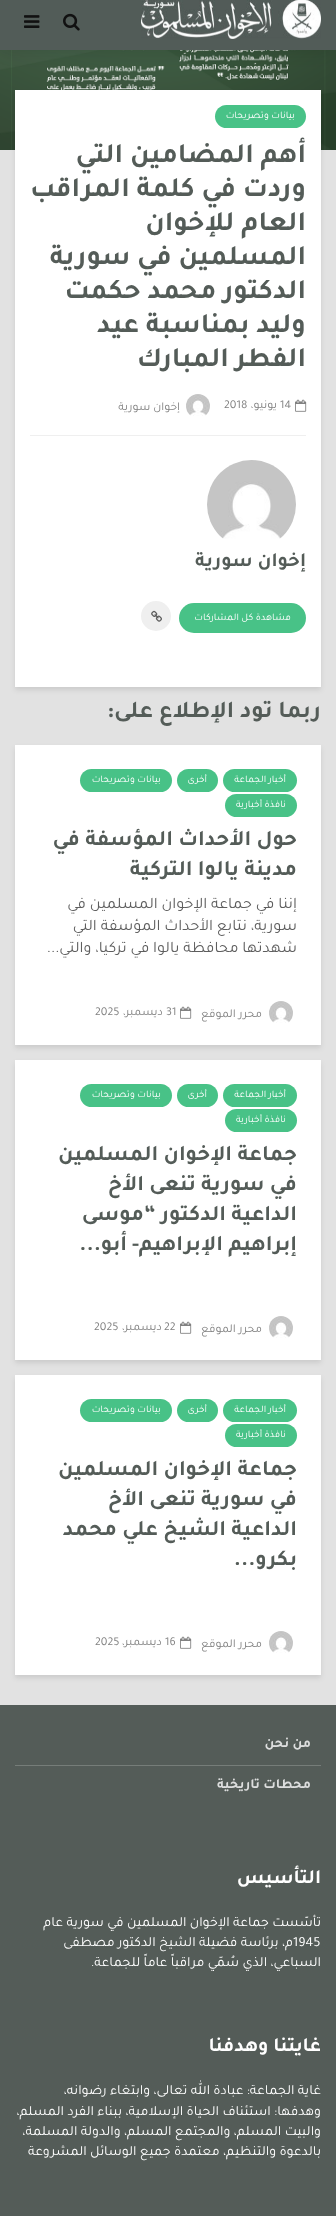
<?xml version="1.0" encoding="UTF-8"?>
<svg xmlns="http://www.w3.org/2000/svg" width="336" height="2216">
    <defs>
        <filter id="blur1" x="-50%" y="-200%" width="200%" height="500%"><feGaussianBlur stdDeviation="10"/></filter>
        <filter id="blur2" x="-50%" y="-200%" width="200%" height="500%"><feGaussianBlur stdDeviation="2.5"/></filter>
    </defs>
    <rect width="100%" height="100%" fill="#E2E2E2"/>
    <image x="0" y="50" width="336" height="100" href="img_04.png"/>
    <rect x="0" y="0" width="336" height="50" fill="#000000" fill-opacity="0.15" filter="url(#blur1)"/>
    <rect x="0" y="0" width="336" height="50" fill="#525C58"/>
    <image x="141" y="0" width="180" height="39" href="img_01.png"/>
    <image x="63" y="13" width="17" height="18" href="img_02.png"/>
    <image x="24" y="15" width="16" height="13" href="img_03.png"/>
    <rect x="15" y="93" width="306" height="597" fill="#000101" fill-opacity="0.1" filter="url(#blur2)"/>
    <rect x="15" y="90" width="306" height="597" fill="#FFFFFF"/>
    <rect x="215" y="105" width="91" height="23" rx="11.5" fill="#48C287"/>
    <text x="295" y="118" font-family="Tajawal" font-size="10" direction="rtl" fill="#FFFFFF">بيانات وتصريحات</text>
    <text font-family="Tajawal" font-size="28" font-weight="700" direction="rtl" fill="#545C58">
        <tspan x="306" y="162">أهم المضامين التي</tspan>
        <tspan x="306" y="196">وردت في كلمة المراقب</tspan>
        <tspan x="306" y="230">العام للإخوان</tspan>
        <tspan x="306" y="264">المسلمين في سورية</tspan>
        <tspan x="306" y="298">الدكتور محمد حكمت</tspan>
        <tspan x="306" y="332">وليد بمناسبة عيد</tspan>
        <tspan x="306" y="366">الفطر المبارك</tspan>
    </text>
    <image x="295" y="399" width="12" height="13" href="img_05.png"/>
    <text x="280" y="408" font-family="Tajawal" font-size="12" fill="#818181">14</text>
    <text x="277" y="408" font-family="Tajawal" font-size="12" direction="rtl" fill="#818181">يونيو،</text>
    <text x="224" y="408" font-family="Tajawal" font-size="12" fill="#818181">2018</text>
    <image x="186" y="394" width="24" height="22" href="img_06.png"/>
    <text x="180" y="410" font-family="Tajawal" font-size="12" direction="rtl" fill="#818181">إخوان سورية</text>
    <rect x="30" y="435" width="276" height="1" fill="#EFEFEF"/>
    <image x="207" y="460" width="89" height="79" href="img_07.png"/>
    <text x="306" y="566" font-family="Tajawal" font-size="20" font-weight="700" direction="rtl" fill="#545C58">إخوان سورية</text>
    <rect x="179" y="603" width="127" height="30" rx="15" fill="#48C287"/>
    <text x="291" y="620" font-family="Tajawal" font-size="10" direction="rtl" fill="#FFFFFF">مشاهدة كل المشاركات</text>
    <circle cx="156" cy="616" r="15" fill="#EFEFEF"/>
    <image x="151" y="610" width="11" height="12" href="img_08.png"/>
    <text x="321" y="717" font-family="Tajawal" font-size="24" font-weight="700" direction="rtl" fill="#545C58">ربما تود الإطلاع على:</text>
    <rect x="15" y="748" width="306" height="300" fill="#000101" fill-opacity="0.1" filter="url(#blur2)"/>
    <rect x="15" y="745" width="306" height="300" fill="#FFFFFF"/>
    <rect x="223" y="769" width="74" height="23" rx="11.5" fill="#48C287"/>
    <text x="286" y="782" font-family="Tajawal" font-size="10" direction="rtl" fill="#FFFFFF">أخبار الجماعة</text>
    <rect x="177" y="769" width="41" height="23" rx="11.5" fill="#48C287"/>
    <text x="207" y="782" font-family="Tajawal" font-size="10" direction="rtl" fill="#FFFFFF">أخرى</text>
    <rect x="80" y="769" width="92" height="23" rx="11.5" fill="#48C287"/>
    <text x="161" y="782" font-family="Tajawal" font-size="10" direction="rtl" fill="#FFFFFF">بيانات وتصريحات</text>
    <rect x="225" y="794" width="72" height="23" rx="11.5" fill="#48C287"/>
    <text x="286" y="807" font-family="Tajawal" font-size="10" direction="rtl" fill="#FFFFFF">نافذة أخبارية</text>
    <text font-family="Tajawal" font-size="22" font-weight="700" direction="rtl" fill="#545C58">
        <tspan x="297" y="845">حول الأحداث المؤسفة في</tspan>
        <tspan x="297" y="875">مدينة يالوا التركية</tspan>
    </text>
    <text font-family="Tajawal" font-size="16" direction="rtl" fill="#5E5E5E">
        <tspan x="297" y="908">إننا في جماعة الإخوان المسلمين في</tspan>
        <tspan x="297" y="930">سورية، نتابع الأحداث المؤسفة التي</tspan>
        <tspan x="297" y="952">شهدتها محافظة يالوا في تركيا، والتي...</tspan>
    </text>
    <image x="269" y="1001" width="24" height="22" href="img_06.png"/>
    <text x="262" y="1017" font-family="Tajawal" font-size="12" direction="rtl" fill="#818181">محرر الموقع</text>
    <image x="180" y="1006" width="12" height="13" href="img_05.png"/>
    <text x="166" y="1015" font-family="Tajawal" font-size="12" fill="#818181">31</text>
    <text x="163" y="1015" font-family="Tajawal" font-size="12" direction="rtl" fill="#818181">ديسمبر،</text>
    <text x="95" y="1015" font-family="Tajawal" font-size="12" fill="#818181">2025</text>
    <rect x="15" y="1063" width="306" height="300" fill="#000101" fill-opacity="0.1" filter="url(#blur2)"/>
    <rect x="15" y="1060" width="306" height="300" fill="#FFFFFF"/>
    <rect x="223" y="1084" width="74" height="23" rx="11.5" fill="#48C287"/>
    <text x="286" y="1097" font-family="Tajawal" font-size="10" direction="rtl" fill="#FFFFFF">أخبار الجماعة</text>
    <rect x="177" y="1084" width="41" height="23" rx="11.5" fill="#48C287"/>
    <text x="207" y="1097" font-family="Tajawal" font-size="10" direction="rtl" fill="#FFFFFF">أخرى</text>
    <rect x="80" y="1084" width="92" height="23" rx="11.5" fill="#48C287"/>
    <text x="161" y="1097" font-family="Tajawal" font-size="10" direction="rtl" fill="#FFFFFF">بيانات وتصريحات</text>
    <rect x="225" y="1109" width="72" height="23" rx="11.5" fill="#48C287"/>
    <text x="286" y="1122" font-family="Tajawal" font-size="10" direction="rtl" fill="#FFFFFF">نافذة أخبارية</text>
    <text font-family="Tajawal" font-size="22" font-weight="700" direction="rtl" fill="#545C58">
        <tspan x="297" y="1160">جماعة الإخوان المسلمين</tspan>
        <tspan x="297" y="1190">في سورية تنعى الأخ</tspan>
        <tspan x="297" y="1220">الداعية الدكتور “موسى</tspan>
        <tspan x="297" y="1250">إبراهيم الإبراهيم- أبو...</tspan>
    </text>
    <image x="269" y="1316" width="24" height="22" href="img_06.png"/>
    <text x="262" y="1332" font-family="Tajawal" font-size="12" direction="rtl" fill="#818181">محرر الموقع</text>
    <image x="180" y="1321" width="12" height="13" href="img_05.png"/>
    <text x="164" y="1330" font-family="Tajawal" font-size="12" fill="#818181">22</text>
    <text x="162" y="1330" font-family="Tajawal" font-size="12" direction="rtl" fill="#818181">ديسمبر،</text>
    <text x="94" y="1330" font-family="Tajawal" font-size="12" fill="#818181">2025</text>
    <rect x="15" y="1378" width="306" height="300" fill="#000101" fill-opacity="0.1" filter="url(#blur2)"/>
    <rect x="15" y="1375" width="306" height="300" fill="#FFFFFF"/>
    <rect x="223" y="1399" width="74" height="23" rx="11.5" fill="#48C287"/>
    <text x="286" y="1412" font-family="Tajawal" font-size="10" direction="rtl" fill="#FFFFFF">أخبار الجماعة</text>
    <rect x="177" y="1399" width="41" height="23" rx="11.5" fill="#48C287"/>
    <text x="207" y="1412" font-family="Tajawal" font-size="10" direction="rtl" fill="#FFFFFF">أخرى</text>
    <rect x="80" y="1399" width="92" height="23" rx="11.5" fill="#48C287"/>
    <text x="161" y="1412" font-family="Tajawal" font-size="10" direction="rtl" fill="#FFFFFF">بيانات وتصريحات</text>
    <rect x="225" y="1424" width="72" height="23" rx="11.5" fill="#48C287"/>
    <text x="286" y="1437" font-family="Tajawal" font-size="10" direction="rtl" fill="#FFFFFF">نافذة أخبارية</text>
    <text font-family="Tajawal" font-size="22" font-weight="700" direction="rtl" fill="#545C58">
        <tspan x="297" y="1475">جماعة الإخوان المسلمين</tspan>
        <tspan x="297" y="1505">في سورية تنعى الأخ</tspan>
        <tspan x="297" y="1535">الداعية الشيخ علي محمد</tspan>
        <tspan x="297" y="1565">بكرو...</tspan>
    </text>
    <image x="269" y="1631" width="24" height="22" href="img_06.png"/>
    <text x="262" y="1647" font-family="Tajawal" font-size="12" direction="rtl" fill="#818181">محرر الموقع</text>
    <image x="180" y="1636" width="12" height="13" href="img_05.png"/>
    <text x="165" y="1645" font-family="Tajawal" font-size="12" fill="#818181">16</text>
    <text x="162" y="1645" font-family="Tajawal" font-size="12" direction="rtl" fill="#818181">ديسمبر،</text>
    <text x="95" y="1645" font-family="Tajawal" font-size="12" fill="#818181">2025</text>
    <rect x="0" y="1705" width="336" height="511" fill="#545C58"/>
    <rect x="15" y="1765" width="306" height="1" fill="#767D79"/>
    <text x="311" y="1747" font-family="Tajawal" font-size="14" font-weight="700" direction="rtl" fill="#DDDEDE">من نحن</text>
    <text x="311" y="1788" font-family="Tajawal" font-size="14" font-weight="700" direction="rtl" fill="#DDDEDE">محطات تاريخية</text>
    <text x="321" y="1883" font-family="Tajawal" font-size="20" font-weight="700" direction="rtl" fill="#FFFFFF">التأسيس</text>
    <text x="321" y="1926" font-family="Tajawal" font-size="14" direction="rtl" fill="#FFFFFF">تأسّست جماعة الإخوان المسلمين في سورية عام</text>
    <text x="293" y="1946" font-family="Tajawal" font-size="14" fill="#FFFFFF">1945</text>
    <text x="293" y="1946" font-family="Tajawal" font-size="14" direction="rtl" fill="#FFFFFF">م، برئاسة فضيلة الشيخ الدكتور مصطفى</text>
    <text x="321" y="1966" font-family="Tajawal" font-size="14" direction="rtl" fill="#FFFFFF">السباعي، الذي سُمّي مراقباً عاماً للجماعة.</text>
    <text x="321" y="2051" font-family="Tajawal" font-size="20" font-weight="700" direction="rtl" fill="#FFFFFF">غايتنا وهدفنا</text>
    <text font-family="Tajawal" font-size="14" direction="rtl" fill="#FFFFFF">
        <tspan x="321" y="2094">غاية الجماعة: عبادة الله تعالى، وابتغاء رضوانه،</tspan>
        <tspan x="321" y="2115">وهدفها: استئناف الحياة الإسلامية، ببناء الفرد المسلم،</tspan>
        <tspan x="321" y="2135">والبيت المسلم، والمجتمع المسلم، والدولة المسلمة،</tspan>
        <tspan x="321" y="2155">بالدعوة والتنظيم، معتمدة جميع الوسائل المشروعة</tspan>
    </text>
</svg>
